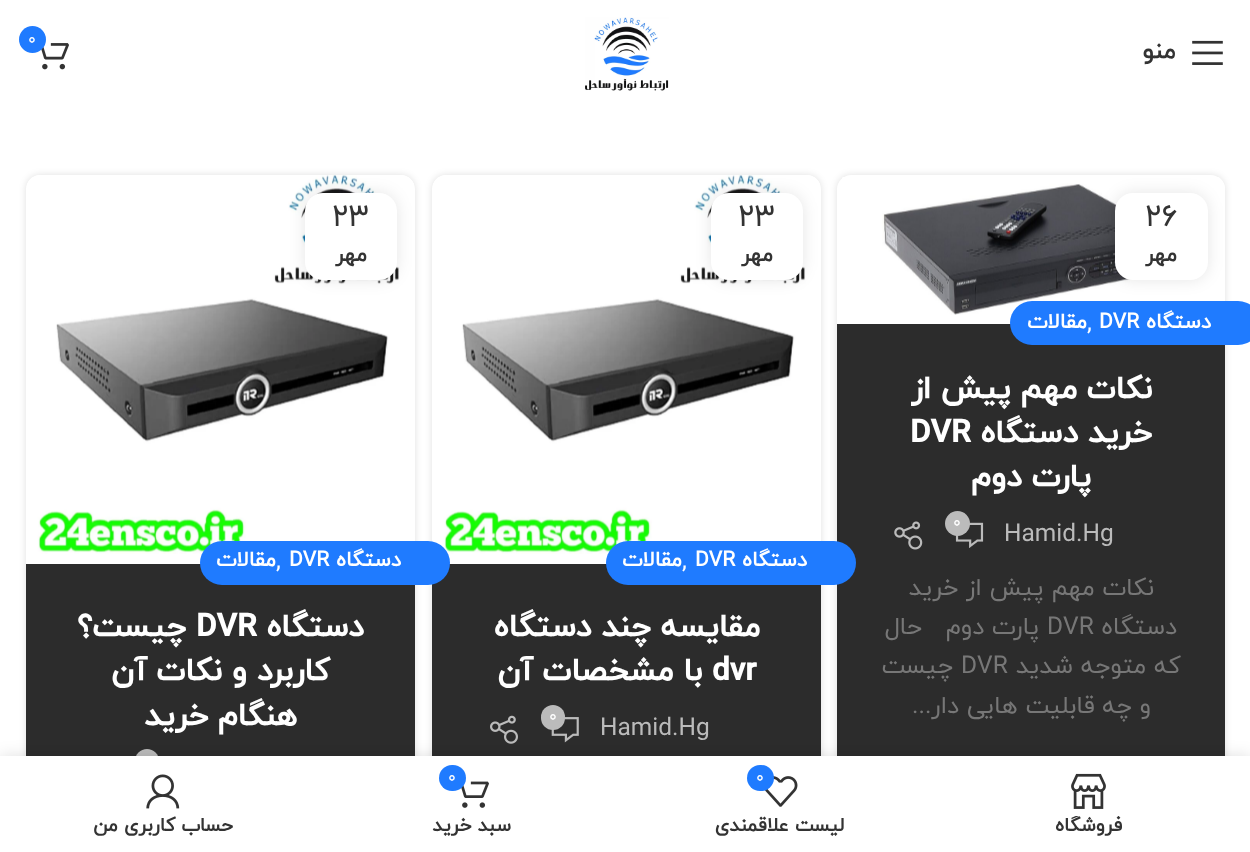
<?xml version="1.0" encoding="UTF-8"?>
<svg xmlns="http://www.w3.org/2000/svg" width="1250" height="852">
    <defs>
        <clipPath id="clip1"><path d="M 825 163 H 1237 V 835 H 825 Z M 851 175 H 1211 C 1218.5 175 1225 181.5 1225 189 V 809 C 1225 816.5 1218.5 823 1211 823 H 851 C 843.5 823 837 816.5 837 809 V 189 C 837 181.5 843.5 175 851 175 Z" clip-rule="evenodd"/></clipPath>
        <filter id="blur1" x="-50%" y="-200%" width="200%" height="500%"><feGaussianBlur stdDeviation="3.5"/></filter>
        <filter id="blur2" x="-50%" y="-200%" width="200%" height="500%"><feGaussianBlur stdDeviation="8"/></filter>
        <clipPath id="clip2"><path d="M 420 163 H 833 V 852 H 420 Z M 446 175 H 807 C 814.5 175 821 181.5 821 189 V 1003 C 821 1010.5 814.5 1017 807 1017 H 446 C 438.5 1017 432 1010.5 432 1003 V 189 C 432 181.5 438.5 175 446 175 Z" clip-rule="evenodd"/></clipPath>
        <clipPath id="clip3"><path d="M 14 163 H 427 V 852 H 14 Z M 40 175 H 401 C 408.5 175 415 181.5 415 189 V 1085 C 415 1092.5 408.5 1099 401 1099 H 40 C 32.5 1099 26 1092.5 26 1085 V 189 C 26 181.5 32.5 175 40 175 Z" clip-rule="evenodd"/></clipPath>
        <clipPath id="clip4"><rect x="952" y="816" width="273" height="22"/></clipPath>
    </defs>
    <rect width="100%" height="100%" fill="#FFFFFF"/>
    <image x="585" y="17" width="84" height="74" href="img_01.png"/>
    <image x="41" y="43" width="28" height="27" href="img_02.png"/>
    <circle cx="32.5" cy="39.5" r="13.5" fill="#1F7BFF"/>
    <text x="28" y="44" font-family="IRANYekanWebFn" font-size="16" fill="#FFFFFF">0</text>
    <image x="1192" y="40" width="31" height="25" href="img_03.png"/>
    <text x="1176" y="58" font-family="'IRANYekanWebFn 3'" font-size="24.5" font-weight="700" direction="rtl" fill="#333333">منو</text>
    <g clip-path="url(#clip1)">
        <rect x="837" y="175" width="388" height="648" rx="14" fill="#000000" fill-opacity="0.12" filter="url(#blur1)"/>
    </g>
    <image x="842" y="177" width="383" height="138" href="img_04.png"/>
    <rect x="837" y="324" width="388" height="432" fill="#2C2C2C"/>
    <rect x="1010" y="301" width="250" height="44" rx="22" fill="#1F7BFF"/>
    <rect x="1115" y="193" width="93" height="87" rx="18" fill="#000000" fill-opacity="0.1" filter="url(#blur2)"/>
    <rect x="1115" y="193" width="93" height="87" rx="18" fill="#FFFFFF"/>
    <text x="1145" y="226" font-family="IRANYekanWebFn" font-size="31.5" fill="#333333">۲۶</text>
    <text x="1177" y="261" font-family="'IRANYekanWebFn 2'" font-size="21" font-weight="700" direction="rtl" fill="#333333">مهر</text>
    <text x="1211" y="328" font-family="'IRANYekanWebFn 2'" font-size="21" font-weight="700" direction="rtl" fill="#FFFFFF">دستگاه</text>
    <text x="1099" y="328" font-family="'IRANYekanWebFn 2'" font-size="21" font-weight="700" fill="#FFFFFF">DVR</text>
    <text x="1087" y="328" font-family="'IRANYekanWebFn 2'" font-size="21" font-weight="700" direction="rtl" fill="#FFFFFF">مقالات</text>
    <text x="1087" y="330" font-family="IRANYekanWebFn" font-size="24.5" fill="#FFFFFF">,</text>
    <text font-family="IRANYekanWebFn" font-size="31.5" font-weight="700" direction="rtl" fill="#FFFFFF">
        <tspan x="1152" y="398">نکات مهم پیش از</tspan>
        <tspan x="1152" y="442">خرید دستگاه</tspan>
    </text>
    <text x="910" y="442" font-family="IRANYekanWebFn" font-size="31.5" font-weight="700" fill="#FFFFFF">DVR</text>
    <text x="1091" y="486" font-family="IRANYekanWebFn" font-size="31.5" font-weight="700" direction="rtl" fill="#FFFFFF">پارت دوم</text>
    <text x="1004" y="541" font-family="IRANYekanWebFn" font-size="24.5" fill="#BBBBBB">Hamid.Hg</text>
    <image x="955" y="522" width="29" height="26" href="img_05.png"/>
    <circle cx="957.5" cy="523.5" r="12.5" fill="#BBBBBB"/>
    <text x="953" y="527" font-family="IRANYekanWebFn" font-size="16" fill="#FFFFFF">0</text>
    <image x="894" y="521" width="29" height="29" href="img_06.png"/>
    <text x="1154" y="595" font-family="IRANYekanWebFn" font-size="24.5" direction="rtl" fill="#777777">نکات مهم پیش از خرید</text>
    <text x="1177" y="634" font-family="IRANYekanWebFn" font-size="24.5" direction="rtl" fill="#777777">دستگاه</text>
    <text x="1047" y="634" font-family="IRANYekanWebFn" font-size="24.5" fill="#777777">DVR</text>
    <text x="1039" y="634" font-family="IRANYekanWebFn" font-size="24.5" direction="rtl" fill="#777777">پارت دوم</text>
    <text x="922" y="634" font-family="IRANYekanWebFn" font-size="24.5" direction="rtl" fill="#777777">حال</text>
    <text x="1181" y="673" font-family="IRANYekanWebFn" font-size="24.5" direction="rtl" fill="#777777">که متوجه شدید</text>
    <text x="961" y="673" font-family="IRANYekanWebFn" font-size="24.5" fill="#777777">DVR</text>
    <text x="953" y="673" font-family="IRANYekanWebFn" font-size="24.5" direction="rtl" fill="#777777">چیست</text>
    <text x="1151" y="713" font-family="IRANYekanWebFn" font-size="24.5" direction="rtl" fill="#777777">و چه قابلیت هایی دار...</text>
    <g clip-path="url(#clip2)">
        <rect x="432" y="175" width="389" height="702" rx="14" fill="#000000" fill-opacity="0.12" filter="url(#blur1)"/>
    </g>
    <image x="433" y="175" width="387" height="379" href="img_07.png"/>
    <rect x="711" y="193" width="92" height="87" rx="18" fill="#000000" fill-opacity="0.1" filter="url(#blur2)"/>
    <rect x="711" y="193" width="92" height="87" rx="18" fill="#FFFFFF"/>
    <text x="738" y="226" font-family="IRANYekanWebFn" font-size="31.5" fill="#333333">۲۳</text>
    <text x="773" y="261" font-family="'IRANYekanWebFn 2'" font-size="21" font-weight="700" direction="rtl" fill="#333333">مهر</text>
    <rect x="432" y="564" width="389" height="192" fill="#2C2C2C"/>
    <rect x="606" y="541" width="250" height="44" rx="22" fill="#1F7BFF"/>
    <text x="807" y="566" font-family="'IRANYekanWebFn 2'" font-size="21" font-weight="700" direction="rtl" fill="#FFFFFF">دستگاه</text>
    <text x="695" y="566" font-family="'IRANYekanWebFn 2'" font-size="21" font-weight="700" fill="#FFFFFF">DVR</text>
    <text x="682" y="566" font-family="'IRANYekanWebFn 2'" font-size="21" font-weight="700" direction="rtl" fill="#FFFFFF">مقالات</text>
    <text x="682" y="568" font-family="IRANYekanWebFn" font-size="24.5" fill="#FFFFFF">,</text>
    <text x="760" y="636" font-family="IRANYekanWebFn" font-size="31.5" font-weight="700" direction="rtl" fill="#FFFFFF">مقایسه چند دستگاه</text>
    <text x="712" y="680" font-family="IRANYekanWebFn" font-size="31.5" font-weight="700" fill="#FFFFFF">dvr</text>
    <text x="702" y="680" font-family="IRANYekanWebFn" font-size="31.5" font-weight="700" direction="rtl" fill="#FFFFFF">با مشخصات آن</text>
    <text x="600" y="735" font-family="IRANYekanWebFn" font-size="24.5" fill="#BBBBBB">Hamid.Hg</text>
    <image x="551" y="717" width="28" height="26" href="img_08.png"/>
    <rect x="541" y="705" width="24" height="25" rx="12" fill="#BBBBBB"/>
    <text x="549" y="721" font-family="IRANYekanWebFn" font-size="16" fill="#FFFFFF">0</text>
    <image x="490" y="715" width="28" height="29" href="img_09.png"/>
    <g clip-path="url(#clip3)">
        <rect x="26" y="175" width="389" height="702" rx="14" fill="#000000" fill-opacity="0.12" filter="url(#blur1)"/>
    </g>
    <image x="27" y="175" width="387" height="379" href="img_07.png"/>
    <rect x="305" y="193" width="92" height="87" rx="18" fill="#000000" fill-opacity="0.1" filter="url(#blur2)"/>
    <rect x="305" y="193" width="92" height="87" rx="18" fill="#FFFFFF"/>
    <text x="332" y="226" font-family="IRANYekanWebFn" font-size="31.5" fill="#333333">۲۳</text>
    <text x="367" y="261" font-family="'IRANYekanWebFn 2'" font-size="21" font-weight="700" direction="rtl" fill="#333333">مهر</text>
    <rect x="26" y="564" width="389" height="192" fill="#2C2C2C"/>
    <rect x="200" y="541" width="250" height="44" rx="22" fill="#1F7BFF"/>
    <text x="401" y="566" font-family="'IRANYekanWebFn 2'" font-size="21" font-weight="700" direction="rtl" fill="#FFFFFF">دستگاه</text>
    <text x="289" y="566" font-family="'IRANYekanWebFn 2'" font-size="21" font-weight="700" fill="#FFFFFF">DVR</text>
    <text x="276" y="566" font-family="'IRANYekanWebFn 2'" font-size="21" font-weight="700" direction="rtl" fill="#FFFFFF">مقالات</text>
    <text x="276" y="568" font-family="IRANYekanWebFn" font-size="24.5" fill="#FFFFFF">,</text>
    <text x="364" y="636" font-family="IRANYekanWebFn" font-size="31.5" font-weight="700" direction="rtl" fill="#FFFFFF">دستگاه</text>
    <text x="196" y="636" font-family="IRANYekanWebFn" font-size="31.5" font-weight="700" fill="#FFFFFF">DVR</text>
    <text x="186" y="636" font-family="IRANYekanWebFn" font-size="31.5" font-weight="700" direction="rtl" fill="#FFFFFF">چیست؟</text>
    <text x="330" y="680" font-family="IRANYekanWebFn" font-size="31.5" font-weight="700" direction="rtl" fill="#FFFFFF">کاربرد و نکات آن</text>
    <text x="297" y="725" font-family="IRANYekanWebFn" font-size="31.5" font-weight="700" direction="rtl" fill="#FFFFFF">هنگام خرید</text>
    <rect x="135" y="749" width="24" height="25" rx="12" fill="#BBBBBB"/>
    <rect x="0" y="756" width="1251" height="96" fill="#000000" fill-opacity="0.12" filter="url(#blur2)"/>
    <rect x="0" y="756" width="1250" height="96" fill="#FFFFFF"/>
    <image x="1071" y="773" width="35" height="36" href="img_10.png"/>
    <g clip-path="url(#clip4)">
        <text x="1122" y="831" font-family="'IRANYekanWebFn 2'" font-size="19.25" font-weight="700" direction="rtl" fill="#333333">فروشگاه</text>
    </g>
    <image x="764" y="776" width="34" height="31" href="img_11.png"/>
    <rect x="747" y="765" width="27" height="26" rx="13" fill="#1F7BFF"/>
    <text x="756" y="782" font-family="IRANYekanWebFn" font-size="16" fill="#FFFFFF">0</text>
    <text x="844" y="831" font-family="'IRANYekanWebFn 2'" font-size="19.25" font-weight="700" direction="rtl" fill="#333333">لیست علاقمندی</text>
    <image x="461" y="781" width="28" height="27" href="img_12.png"/>
    <rect x="439" y="765" width="27" height="26" rx="13" fill="#1F7BFF"/>
    <text x="448" y="782" font-family="IRANYekanWebFn" font-size="16" fill="#FFFFFF">0</text>
    <text x="511" y="831" font-family="'IRANYekanWebFn 2'" font-size="19.25" font-weight="700" direction="rtl" fill="#333333">سبد خرید</text>
    <image x="146" y="774" width="34" height="35" href="img_13.png"/>
    <text x="233" y="831" font-family="'IRANYekanWebFn 2'" font-size="19.25" font-weight="700" direction="rtl" fill="#333333">حساب کاربری من</text>
</svg>
